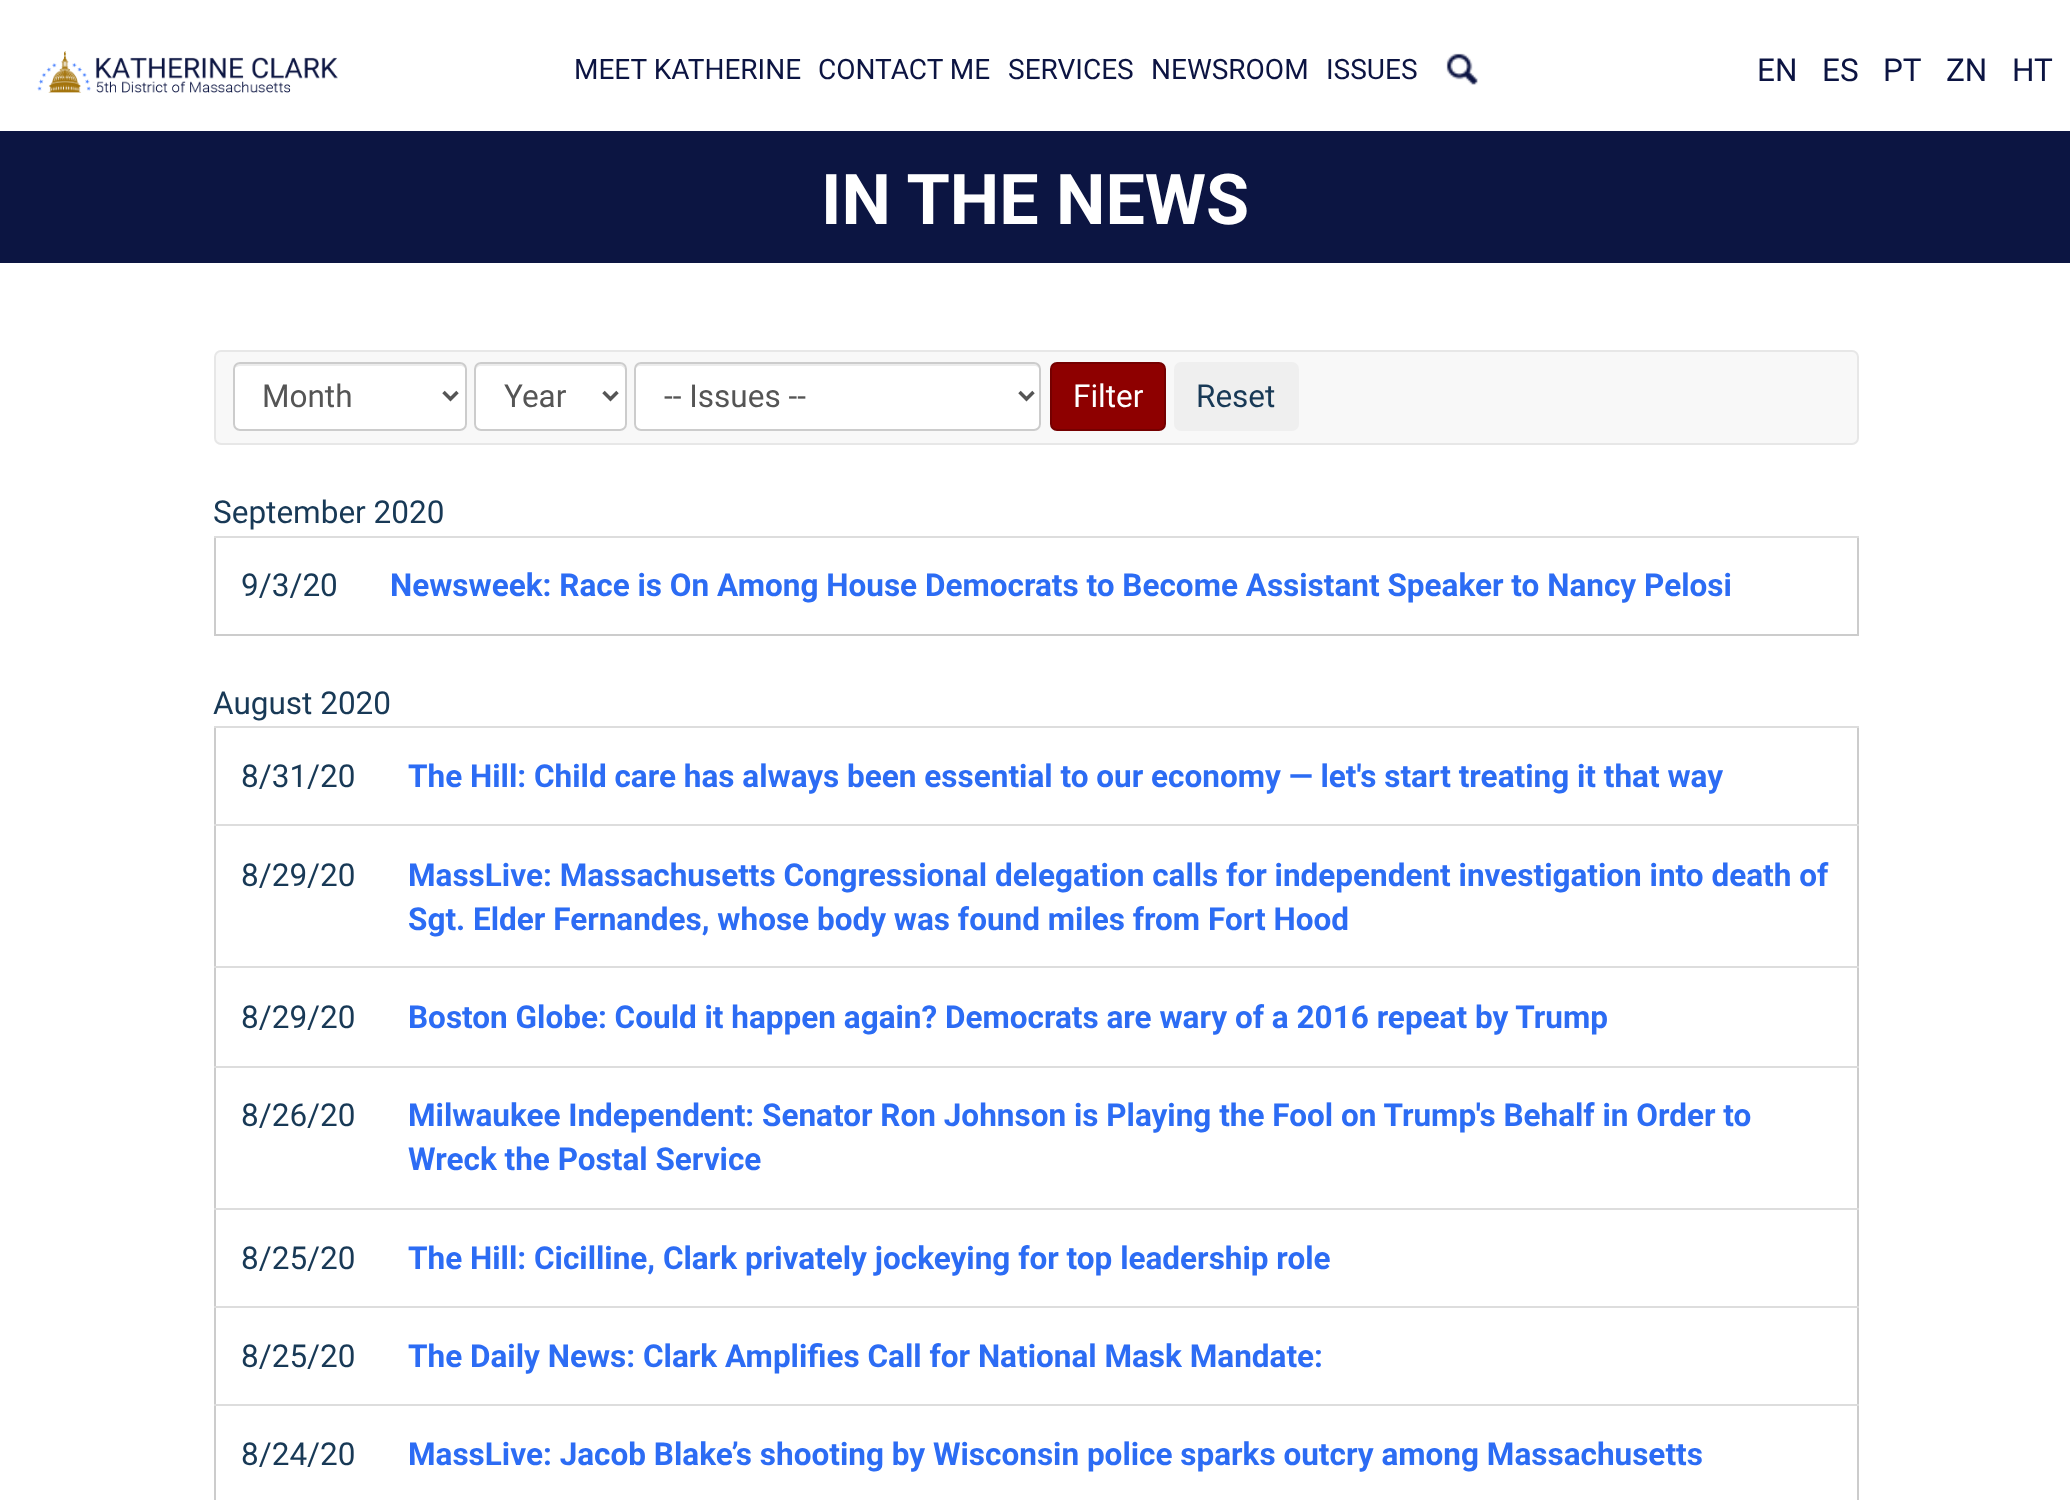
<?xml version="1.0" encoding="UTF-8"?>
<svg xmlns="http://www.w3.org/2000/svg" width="2070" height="1500">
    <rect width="100%" height="100%" fill="#FFFFFF"/>
    <image x="37" y="51" width="301" height="42" href="img_01.png"/>
    <text x="574" y="79" font-family="Roboto" font-size="28" fill="#0C1442">MEET KATHERINE</text>
    <text x="818" y="79" font-family="Roboto" font-size="28" fill="#0C1442">CONTACT ME</text>
    <text x="1008" y="79" font-family="Roboto" font-size="28" fill="#0C1442">SERVICES</text>
    <text x="1151" y="79" font-family="Roboto" font-size="28" fill="#0C1442">NEWSROOM</text>
    <text x="1326" y="79" font-family="Roboto" font-size="28" fill="#0C1442">ISSUES</text>
    <image x="1446" y="53" width="32" height="32" href="img_02.png"/>
    <text x="1757" y="81" font-family="Roboto" font-size="31.5" fill="#0C1442">EN</text>
    <text x="1822" y="81" font-family="Roboto" font-size="31.5" fill="#0C1442">ES</text>
    <text x="1883" y="81" font-family="Roboto" font-size="31.5" fill="#0C1442">PT</text>
    <text x="1946" y="81" font-family="Roboto" font-size="31.5" fill="#0C1442">ZN</text>
    <text x="2012" y="81" font-family="Roboto" font-size="31.5" fill="#0C1442">HT</text>
    <rect x="0" y="131" width="2070" height="132" fill="#0C1542"/>
    <text x="821" y="224" font-family="Roboto" font-size="70" font-weight="700" fill="#FFFFFF">IN THE NEWS</text>
    <rect x="215" y="351" width="1643" height="93" rx="6" fill="#F8F8F8" stroke="#E7E7E7" stroke-width="2"/>
    <rect x="233" y="362" width="234" height="69" rx="7" fill="#FFFFFF"/>
    <path d="M 240 366 H 460 C 463 366 466 368 466 371 C 466 368 465 364 461 364 H 238 C 237 365 235 366 235 368 C 236 367 238 366 240 366 Z" fill="#ECECEC"/>
    <rect x="234" y="363" width="232" height="67" rx="6" fill="none" stroke="#CCCCCC" stroke-width="2"/>
    <path d="M 443.5 392 L 450.5 399 L 457.5 392" fill="none" stroke="#555555" stroke-width="3.5"/>
    <text x="262" y="407" font-family="Roboto" font-size="31.5" fill="#555555">Month</text>
    <rect x="474" y="362" width="153" height="69" rx="7" fill="#FFFFFF"/>
    <path d="M 481 366 H 620 C 622 366 625 368 625 371 V 369 C 625 366 623 364 620 364 H 481 C 478 364 476 366 476 369 V 371 C 476 368 478 366 481 366 Z" fill="#ECECEC"/>
    <rect x="475" y="363" width="151" height="67" rx="6" fill="none" stroke="#CCCCCC" stroke-width="2"/>
    <path d="M 603.5 392 L 610.5 399 L 617.5 392" fill="none" stroke="#555555" stroke-width="3.5"/>
    <text x="504" y="407" font-family="Roboto" font-size="31.5" fill="#555555">Year</text>
    <rect x="634" y="362" width="407" height="69" rx="7" fill="#FFFFFF"/>
    <path d="M 640 366 H 1034 C 1037 366 1040 368 1040 371 V 369 C 1040 366 1038 364 1035 364 H 640 C 637 364 635 366 635 369 V 371 C 635 368 638 366 640 366 Z" fill="#ECECEC"/>
    <rect x="635" y="363" width="405" height="67" rx="6" fill="none" stroke="#CCCCCC" stroke-width="2"/>
    <path d="M 1019.5 392 L 1026.5 399 L 1033.5 392" fill="none" stroke="#555555" stroke-width="3.5"/>
    <text x="664" y="407" font-family="Roboto" font-size="31.5" fill="#555555">-- Issues --</text>
    <rect x="1051" y="363" width="114" height="67" rx="6" fill="#8E0000" stroke="#750000" stroke-width="2"/>
    <text x="1073" y="407" font-family="Roboto" font-size="31.5" fill="#FFFFFF">Filter</text>
    <rect x="1174" y="362" width="125" height="69" rx="7" fill="#EFEFEF"/>
    <text x="1196" y="407" font-family="Roboto" font-size="31.5" fill="#183956">Reset</text>
    <text x="213" y="523" font-family="Roboto" font-size="31.5" fill="#183956">September 2020</text>
    <rect x="1857" y="536" width="2" height="99" fill="#CCCCCC"/>
    <rect x="214" y="634" width="1645" height="2" fill="#CCCCCC"/>
    <rect x="214" y="536" width="2" height="99" fill="#CCCCCC"/>
    <text x="241" y="596" font-family="Roboto" font-size="31.5" fill="#183956">9/3/20</text>
    <rect x="214" y="536" width="1645" height="2" fill="#DDDDDD"/>
    <text x="390" y="596" font-family="Roboto" font-size="31.5" font-weight="700" fill="#2C6CF4">Newsweek: Race is On Among House Democrats to Become Assistant Speaker to Nancy Pelosi</text>
    <text x="213" y="714" font-family="Roboto" font-size="31.5" fill="#183956">August 2020</text>
    <rect x="1857" y="726" width="2" height="774" fill="#CCCCCC"/>
    <rect x="214" y="726" width="2" height="774" fill="#CCCCCC"/>
    <text x="241" y="787" font-family="Roboto" font-size="31.5" fill="#183956">8/31/20</text>
    <rect x="214" y="726" width="1645" height="2" fill="#DDDDDD"/>
    <text x="408" y="787" font-family="Roboto" font-size="31.5" font-weight="700" fill="#2C6CF4">The Hill: Child care has always been essential to our economy — let's start treating it that way</text>
    <text x="241" y="886" font-family="Roboto" font-size="31.5" fill="#183956">8/29/20</text>
    <rect x="214" y="824" width="1645" height="2" fill="#DDDDDD"/>
    <text font-family="Roboto" font-size="31.5" font-weight="700" fill="#2C6CF4">
        <tspan x="408" y="886">MassLive: Massachusetts Congressional delegation calls for independent investigation into death of</tspan>
        <tspan x="408" y="930">Sgt. Elder Fernandes, whose body was found miles from Fort Hood</tspan>
    </text>
    <text x="241" y="1028" font-family="Roboto" font-size="31.5" fill="#183956">8/29/20</text>
    <rect x="214" y="966" width="1645" height="2" fill="#DDDDDD"/>
    <text x="408" y="1028" font-family="Roboto" font-size="31.5" font-weight="700" fill="#2C6CF4">Boston Globe: Could it happen again? Democrats are wary of a 2016 repeat by Trump</text>
    <text x="241" y="1126" font-family="Roboto" font-size="31.5" fill="#183956">8/26/20</text>
    <rect x="214" y="1066" width="1645" height="2" fill="#DDDDDD"/>
    <text font-family="Roboto" font-size="31.5" font-weight="700" fill="#2C6CF4">
        <tspan x="408" y="1126">Milwaukee Independent: Senator Ron Johnson is Playing the Fool on Trump's Behalf in Order to</tspan>
        <tspan x="408" y="1170">Wreck the Postal Service</tspan>
    </text>
    <text x="241" y="1269" font-family="Roboto" font-size="31.5" fill="#183956">8/25/20</text>
    <rect x="214" y="1208" width="1645" height="2" fill="#DDDDDD"/>
    <text x="408" y="1269" font-family="Roboto" font-size="31.5" font-weight="700" fill="#2C6CF4">The Hill: Cicilline, Clark privately jockeying for top leadership role</text>
    <text x="241" y="1367" font-family="Roboto" font-size="31.5" fill="#183956">8/25/20</text>
    <rect x="214" y="1306" width="1645" height="2" fill="#DDDDDD"/>
    <text x="408" y="1367" font-family="Roboto" font-size="31.5" font-weight="700" fill="#2C6CF4">The Daily News: Clark Amplifies Call for National Mask Mandate:</text>
    <text x="241" y="1465" font-family="Roboto" font-size="31.5" fill="#183956">8/24/20</text>
    <rect x="214" y="1404" width="1645" height="2" fill="#DDDDDD"/>
    <text x="408" y="1465" font-family="Roboto" font-size="31.5" font-weight="700" fill="#2C6CF4">MassLive: Jacob Blake’s shooting by Wisconsin police sparks outcry among Massachusetts</text>
</svg>
